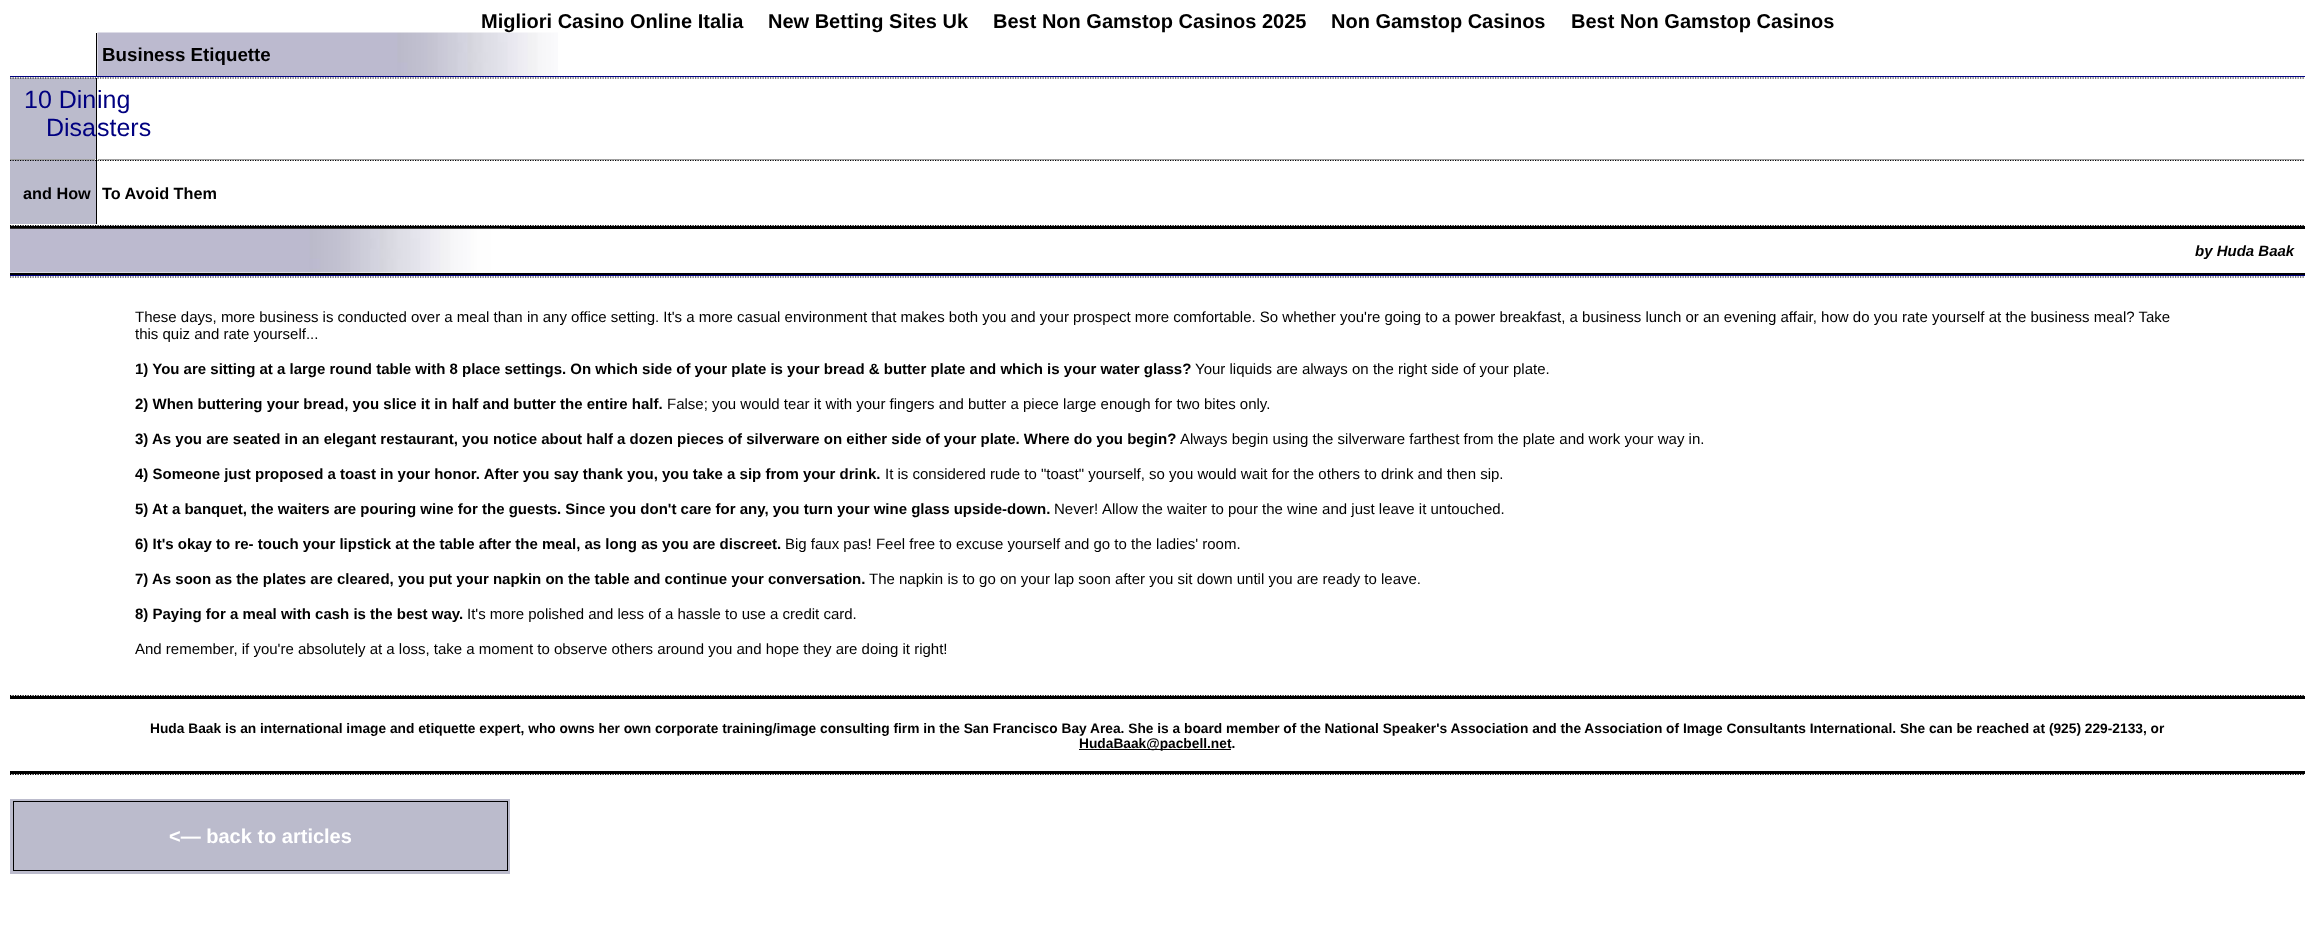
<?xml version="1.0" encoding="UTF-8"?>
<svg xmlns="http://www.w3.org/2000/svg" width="2314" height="932">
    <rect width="100%" height="100%" fill="#FFFFFF"/>
    <image x="97" y="32" width="461" height="44" href="img_01.png"/>
    <text x="481" y="28" font-family="Liberation Sans" font-size="20" font-weight="700" fill="#000000">Migliori Casino Online Italia</text>
    <text x="768" y="28" font-family="Liberation Sans" font-size="20" font-weight="700" fill="#000000">New Betting Sites Uk</text>
    <text x="993" y="28" font-family="Liberation Sans" font-size="20" font-weight="700" fill="#000000">Best Non Gamstop Casinos 2025</text>
    <text x="1331" y="28" font-family="Liberation Sans" font-size="20" font-weight="700" fill="#000000">Non Gamstop Casinos</text>
    <text x="1571" y="28" font-family="Liberation Sans" font-size="20" font-weight="700" fill="#000000">Best Non Gamstop Casinos</text>
    <rect x="96" y="33" width="1" height="43" fill="#000000"/>
    <text x="102" y="61" font-family="Liberation Sans" font-size="18.75" font-weight="700" fill="#000000">Business Etiquette</text>
    <rect x="10" y="76" width="2295" height="1" fill="#000080"/>
    <rect x="96" y="78" width="1" height="146" fill="#000000"/>
    <rect x="10" y="78" width="86" height="83" fill="#BBBBCC"/>
    <path d="M 10 78 H 96" fill="none" stroke="#000000" stroke-width="1.2" stroke-dasharray="1.25 1.25"/>
    <path d="M 10 160.5 H 96" fill="none" stroke="#000000" stroke-width="1.2" stroke-dasharray="1.25 1.25"/>
    <text x="24" y="108" font-family="Liberation Sans" font-size="25" fill="#000080">10 Din</text>
    <text x="46" y="136" font-family="Liberation Sans" font-size="25" fill="#000080">Disa</text>
    <rect x="10" y="159" width="86" height="1" fill="#9F9F9F"/>
    <rect x="95" y="159" width="1" height="1" fill="#EEEEEE"/>
    <path d="M 97.5 78 H 2305" fill="none" stroke="#000000" stroke-width="1.2" stroke-dasharray="1.25 1.25"/>
    <path d="M 97.5 160.5 H 2305" fill="none" stroke="#000000" stroke-width="1.2" stroke-dasharray="1.25 1.25"/>
    <text font-family="Liberation Sans" font-size="25" fill="#000080">
        <tspan x="97" y="108">ing</tspan>
        <tspan x="97" y="136">sters</tspan>
    </text>
    <rect x="98" y="159" width="2207" height="1" fill="#9F9F9F"/>
    <rect x="2304" y="159" width="1" height="1" fill="#EEEEEE"/>
    <rect x="10" y="161" width="86" height="63" fill="#BBBBCC"/>
    <text x="23" y="199" font-family="Liberation Sans" font-size="16.25" font-weight="700" fill="#000000">and How</text>
    <text x="102" y="199" font-family="Liberation Sans" font-size="16.25" font-weight="700" fill="#000000">To Avoid Them</text>
    <path d="M 10 225.5 H 2305" fill="none" stroke="#000000" stroke-width="1.2" stroke-dasharray="1.25 1.25"/>
    <path d="M 10 277 H 2305" fill="none" stroke="#000000" stroke-width="1.2" stroke-dasharray="1.25 1.25"/>
    <rect x="10" y="226" width="2295" height="3" fill="#000000"/>
    <image x="10" y="228" width="500" height="45" href="img_02.png"/>
    <text x="2195" y="256" font-family="Liberation Sans" font-size="15" font-weight="700" font-style="italic" fill="#000000">by Huda Baak</text>
    <rect x="10" y="273" width="2295" height="2" fill="#000000"/>
    <rect x="10" y="275" width="2295" height="1" fill="#000080"/>
    <text font-family="Liberation Sans" font-size="15" fill="#000000">
        <tspan x="135" y="322">These days, more business is conducted over a meal than in any office setting. It's a more casual environment that makes both you and your prospect more comfortable. So whether you're going to a power breakfast, a business lunch or an evening affair, how do you rate yourself at the business meal? Take</tspan>
        <tspan x="135" y="339">this quiz and rate yourself...</tspan>
    </text>
    <text x="135" y="374" font-family="Liberation Sans" font-size="15" font-weight="700" fill="#000000">1) You are sitting at a large round table with 8 place settings. On which side of your plate is your bread &amp; butter plate and which is your water glass?</text>
    <text x="1195" y="374" font-family="Liberation Sans" font-size="15" fill="#000000">Your liquids are always on the right side of your plate.</text>
    <text x="135" y="409" font-family="Liberation Sans" font-size="15" font-weight="700" fill="#000000">2) When buttering your bread, you slice it in half and butter the entire half.</text>
    <text x="667" y="409" font-family="Liberation Sans" font-size="15" fill="#000000">False; you would tear it with your fingers and butter a piece large enough for two bites only.</text>
    <text x="135" y="444" font-family="Liberation Sans" font-size="15" font-weight="700" fill="#000000">3) As you are seated in an elegant restaurant, you notice about half a dozen pieces of silverware on either side of your plate. Where do you begin?</text>
    <text x="1180" y="444" font-family="Liberation Sans" font-size="15" fill="#000000">Always begin using the silverware farthest from the plate and work your way in.</text>
    <text x="135" y="479" font-family="Liberation Sans" font-size="15" font-weight="700" fill="#000000">4) Someone just proposed a toast in your honor. After you say thank you, you take a sip from your drink.</text>
    <text x="885" y="479" font-family="Liberation Sans" font-size="15" fill="#000000">It is considered rude to "toast" yourself, so you would wait for the others to drink and then sip.</text>
    <text x="135" y="514" font-family="Liberation Sans" font-size="15" font-weight="700" fill="#000000">5) At a banquet, the waiters are pouring wine for the guests. Since you don't care for any, you turn your wine glass upside-down.</text>
    <text x="1054" y="514" font-family="Liberation Sans" font-size="15" fill="#000000">Never!</text>
    <text x="1102" y="514" font-family="Liberation Sans" font-size="15" fill="#000000">Allow the waiter to pour the wine and just leave it untouched.</text>
    <text x="135" y="549" font-family="Liberation Sans" font-size="15" font-weight="700" fill="#000000">6) It's okay to re- touch your lipstick at the table after the meal, as long as you are discreet.</text>
    <text x="785" y="549" font-family="Liberation Sans" font-size="15" fill="#000000">Big faux pas! Feel free to excuse yourself and go to the ladies' room.</text>
    <text x="135" y="584" font-family="Liberation Sans" font-size="15" font-weight="700" fill="#000000">7) As soon as the plates are cleared, you put your napkin on the table and continue your conversation.</text>
    <text x="869" y="584" font-family="Liberation Sans" font-size="15" fill="#000000">The napkin is to go on your lap soon after you sit down until you are ready to leave.</text>
    <text x="135" y="619" font-family="Liberation Sans" font-size="15" font-weight="700" fill="#000000">8) Paying for a meal with cash is the best way.</text>
    <text x="467" y="619" font-family="Liberation Sans" font-size="15" fill="#000000">It's more polished and less of a hassle to use a credit card.</text>
    <text x="135" y="654" font-family="Liberation Sans" font-size="15" fill="#000000">And remember, if you're absolutely at a loss, take a moment to observe others around you and hope they are doing it right!</text>
    <path d="M 10 695.5 H 2305" fill="none" stroke="#000000" stroke-width="1.2" stroke-dasharray="1.25 1.25"/>
    <path d="M 10 774.5 H 2305" fill="none" stroke="#000000" stroke-width="1.2" stroke-dasharray="1.25 1.25"/>
    <rect x="10" y="696" width="2295" height="3" fill="#000000"/>
    <text x="150" y="733" font-family="Liberation Sans" font-size="13.75" font-weight="700" fill="#000000">Huda Baak is an international image and etiquette expert, who owns her own corporate training/image consulting firm in the San Francisco Bay Area. She is a board member of the National Speaker's Association and the Association of Image Consultants International. She can be reached at (925) 229-2133, or</text>
    <rect x="1079" y="749" width="152" height="1" fill="#000000"/>
    <text x="1079" y="748" font-family="Liberation Sans" font-size="13.75" font-weight="700" fill="#000000">HudaBaak@pacbell.net.</text>
    <rect x="10" y="771" width="2295" height="3" fill="#000000"/>
    <rect x="10" y="799" width="500" height="75" fill="#BBBBCC"/>
    <rect x="13.5" y="801.5" width="494" height="69" fill="none" stroke="#000000"/>
    <text x="169" y="843" font-family="Liberation Sans" font-size="20" font-weight="700" fill="#FFFFFF">&lt;— back to articles</text>
</svg>
